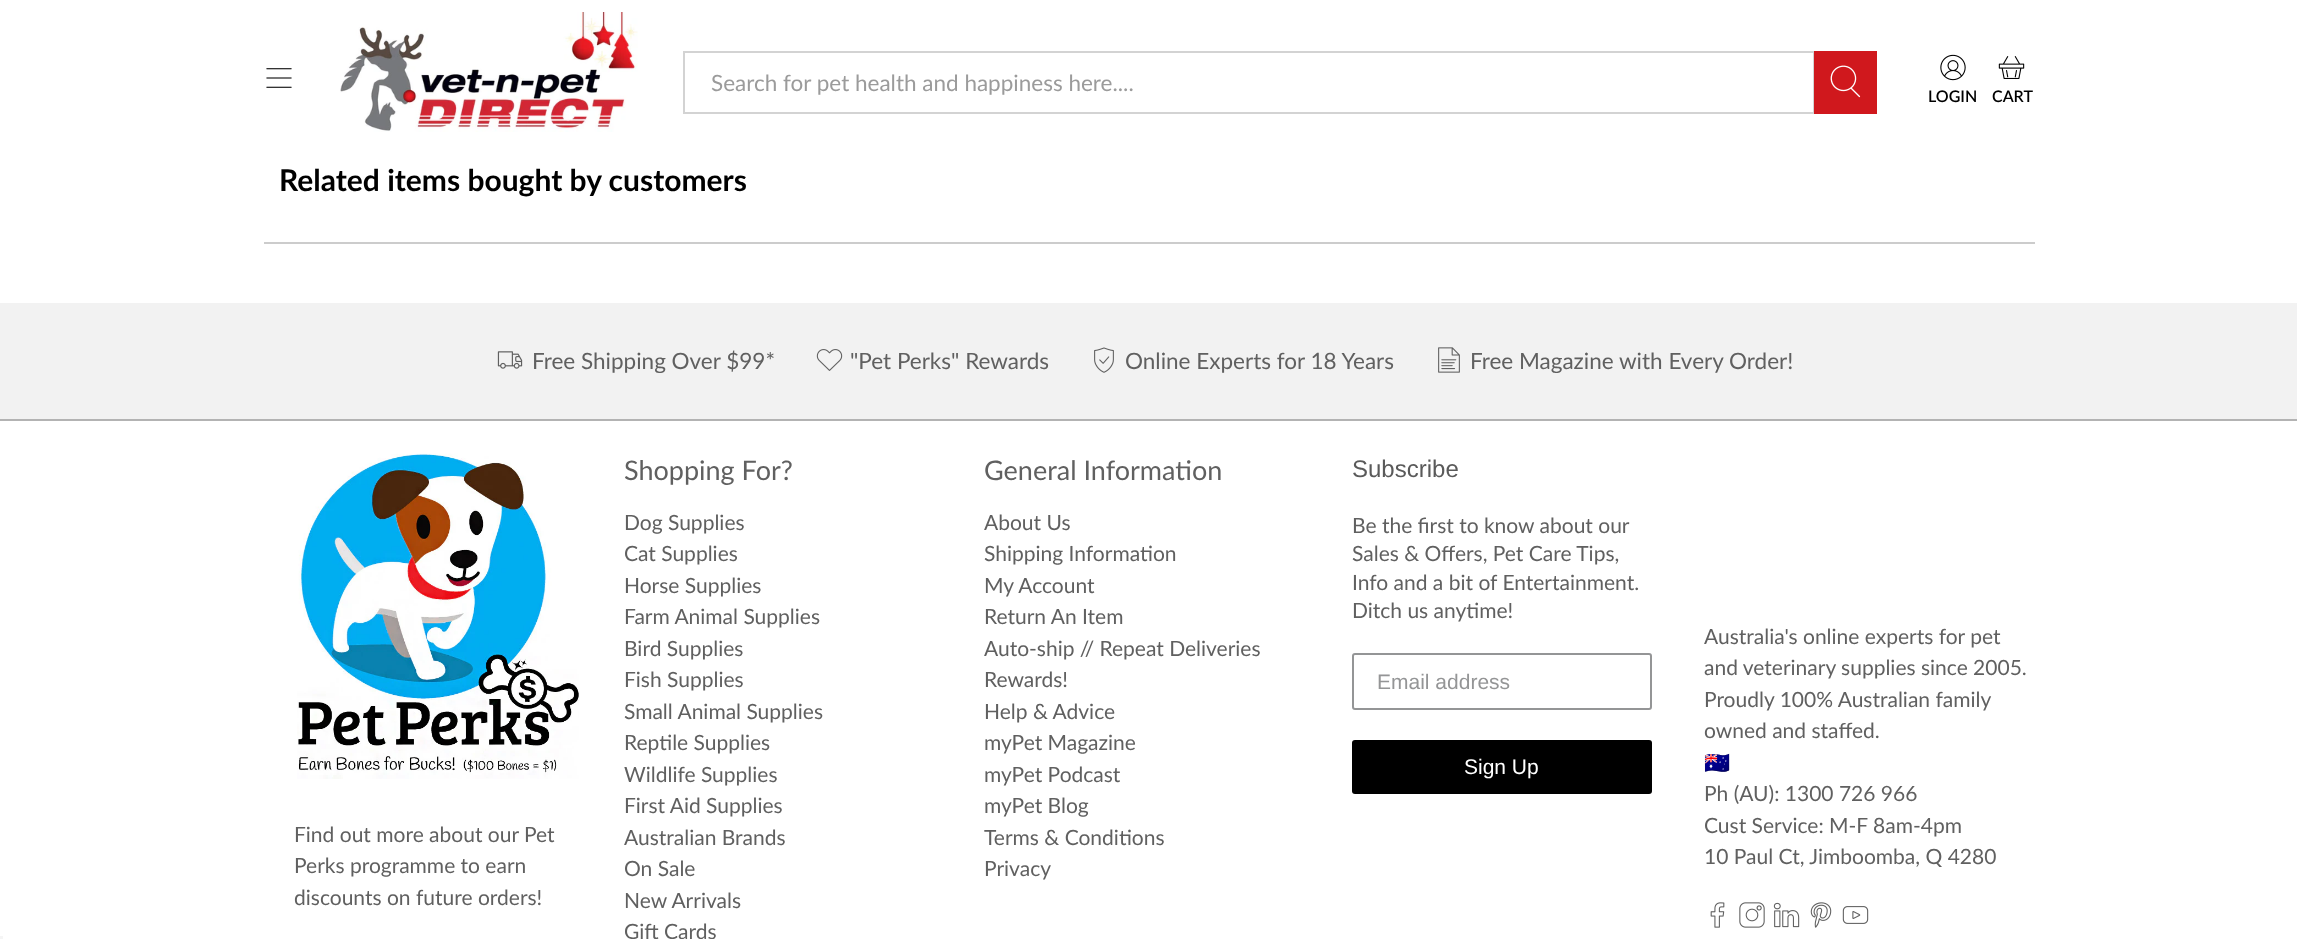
<?xml version="1.0" encoding="UTF-8"?>
<svg xmlns="http://www.w3.org/2000/svg" width="2297" height="939">
    <rect width="100%" height="100%" fill="#FFFFFF"/>
    <image x="266" y="68" width="26" height="20" href="img_01.png"/>
    <image x="340" y="12" width="298" height="120" href="img_02.png"/>
    <rect x="684" y="52" width="1130" height="61" fill="none" stroke="#D3D3D3" stroke-width="2"/>
    <text x="711" y="91" font-family="Lato" font-size="22.5" fill="#9B9B9B">Search for pet health and happiness here....</text>
    <rect x="1814" y="51" width="63" height="63" fill="#D0181D"/>
    <image x="1830" y="65" width="31" height="33" href="img_03.png"/>
    <image x="1940" y="54" width="26" height="27" href="img_04.png"/>
    <text x="1928" y="102" font-family="Lato" font-size="16" font-weight="600" fill="#000000">LOGIN</text>
    <image x="1998" y="56" width="27" height="23" href="img_05.png"/>
    <text x="1992" y="102" font-family="Lato" font-size="16" font-weight="600" fill="#000000">CART</text>
    <text x="279" y="191" font-family="Lato" font-size="30" font-weight="700" fill="#000000">Related items bought by customers</text>
    <rect x="264" y="242" width="1771" height="2" fill="#CCCCCC"/>
    <rect x="0" y="303" width="2297" height="116" fill="#F2F2F2"/>
    <image x="497" y="351" width="26" height="18" href="img_06.png"/>
    <text x="532" y="369" font-family="Lato" font-size="22.5" fill="#606060">Free Shipping Over $99*</text>
    <image x="816" y="349" width="27" height="22" href="img_07.png"/>
    <text x="850" y="369" font-family="Lato" font-size="22.5" fill="#606060">"Pet Perks" Rewards</text>
    <image x="1094" y="347" width="20" height="26" href="img_08.png"/>
    <text x="1125" y="369" font-family="Lato" font-size="22.5" fill="#606060">Online Experts for 18 Years</text>
    <image x="1438" y="347" width="22" height="26" href="img_09.png"/>
    <text x="1470" y="369" font-family="Lato" font-size="22.5" fill="#606060">Free Magazine with Every Order!</text>
    <rect x="0" y="936" width="3" height="3" fill="#F5F5F5"/>
    <rect x="0" y="419" width="2297" height="2" fill="#B3B3B3"/>
    <image x="297" y="453" width="282" height="326" href="img_10.png"/>
    <text font-family="Lato" font-size="21" fill="#606060">
        <tspan x="294" y="842">Find out more about our Pet</tspan>
        <tspan x="294" y="873">Perks programme to earn</tspan>
        <tspan x="294" y="905">discounts on future orders!</tspan>
    </text>
    <text x="624" y="480" font-family="Lato" font-size="27" fill="#606060">Shopping For?</text>
    <text font-family="Lato" font-size="21" fill="#606060">
        <tspan x="624" y="530">Dog Supplies</tspan>
        <tspan x="624" y="561">Cat Supplies</tspan>
        <tspan x="624" y="593">Horse Supplies</tspan>
        <tspan x="624" y="624">Farm Animal Supplies</tspan>
        <tspan x="624" y="656">Bird Supplies</tspan>
        <tspan x="624" y="687">Fish Supplies</tspan>
        <tspan x="624" y="719">Small Animal Supplies</tspan>
        <tspan x="624" y="750">Reptile Supplies</tspan>
        <tspan x="624" y="782">Wildlife Supplies</tspan>
        <tspan x="624" y="813">First Aid Supplies</tspan>
        <tspan x="624" y="845">Australian Brands</tspan>
        <tspan x="624" y="876">On Sale</tspan>
        <tspan x="624" y="908">New Arrivals</tspan>
        <tspan x="624" y="939">Gift Cards</tspan>
    </text>
    <text x="984" y="480" font-family="Lato" font-size="27" fill="#606060">General Information</text>
    <text font-family="Lato" font-size="21" fill="#606060">
        <tspan x="984" y="530">About Us</tspan>
        <tspan x="984" y="561">Shipping Information</tspan>
        <tspan x="984" y="593">My Account</tspan>
        <tspan x="984" y="624">Return An Item</tspan>
        <tspan x="984" y="656">Auto-ship // Repeat Deliveries</tspan>
        <tspan x="984" y="687">Rewards!</tspan>
        <tspan x="984" y="719">Help &amp; Advice</tspan>
        <tspan x="984" y="750">myPet Magazine</tspan>
        <tspan x="984" y="782">myPet Podcast</tspan>
        <tspan x="984" y="813">myPet Blog</tspan>
        <tspan x="984" y="845">Terms &amp; Conditions</tspan>
        <tspan x="984" y="876">Privacy</tspan>
    </text>
    <text x="1352" y="477" font-family="Liberation Sans" font-size="24" fill="#5A5A5A">Subscribe</text>
    <text font-family="Lato" font-size="21" fill="#606060">
        <tspan x="1352" y="533">Be the first to know about our</tspan>
        <tspan x="1352" y="561">Sales &amp; Offers, Pet Care Tips,</tspan>
        <tspan x="1352" y="590">Info and a bit of Entertainment.</tspan>
        <tspan x="1352" y="618">Ditch us anytime!</tspan>
    </text>
    <rect x="1353" y="654" width="298" height="55" rx="2" fill="none" stroke="#949596" stroke-width="2"/>
    <text x="1377" y="689" font-family="Liberation Sans" font-size="21" fill="#949596">Email address</text>
    <rect x="1352" y="740" width="300" height="54" rx="3" fill="#000000"/>
    <text x="1464" y="774" font-family="Liberation Sans" font-size="21" fill="#FFFFFF">Sign Up</text>
    <text font-family="Lato" font-size="21" fill="#606060">
        <tspan x="1704" y="644">Australia's online experts for pet</tspan>
        <tspan x="1704" y="675">and veterinary supplies since 2005.</tspan>
        <tspan x="1704" y="707">Proudly 100% Australian family</tspan>
        <tspan x="1704" y="738">owned and staffed.</tspan>
    </text>
    <text x="1704" y="770" font-family="Noto Color Emoji" font-size="21" fill="#606060">🇦🇺</text>
    <text font-family="Lato" font-size="21" fill="#606060">
        <tspan x="1704" y="801">Ph (AU): 1300 726 966</tspan>
        <tspan x="1704" y="833">Cust Service: M-F 8am-4pm</tspan>
        <tspan x="1704" y="864">10 Paul Ct, Jimboomba, Q 4280</tspan>
    </text>
    <image x="1710" y="902" width="15" height="26" href="img_11.png"/>
    <image x="1739" y="902" width="26" height="26" href="img_12.png"/>
    <image x="1773" y="902" width="27" height="26" href="img_13.png"/>
    <image x="1810" y="902" width="22" height="26" href="img_14.png"/>
    <image x="1842" y="906" width="27" height="18" href="img_15.png"/>
</svg>
